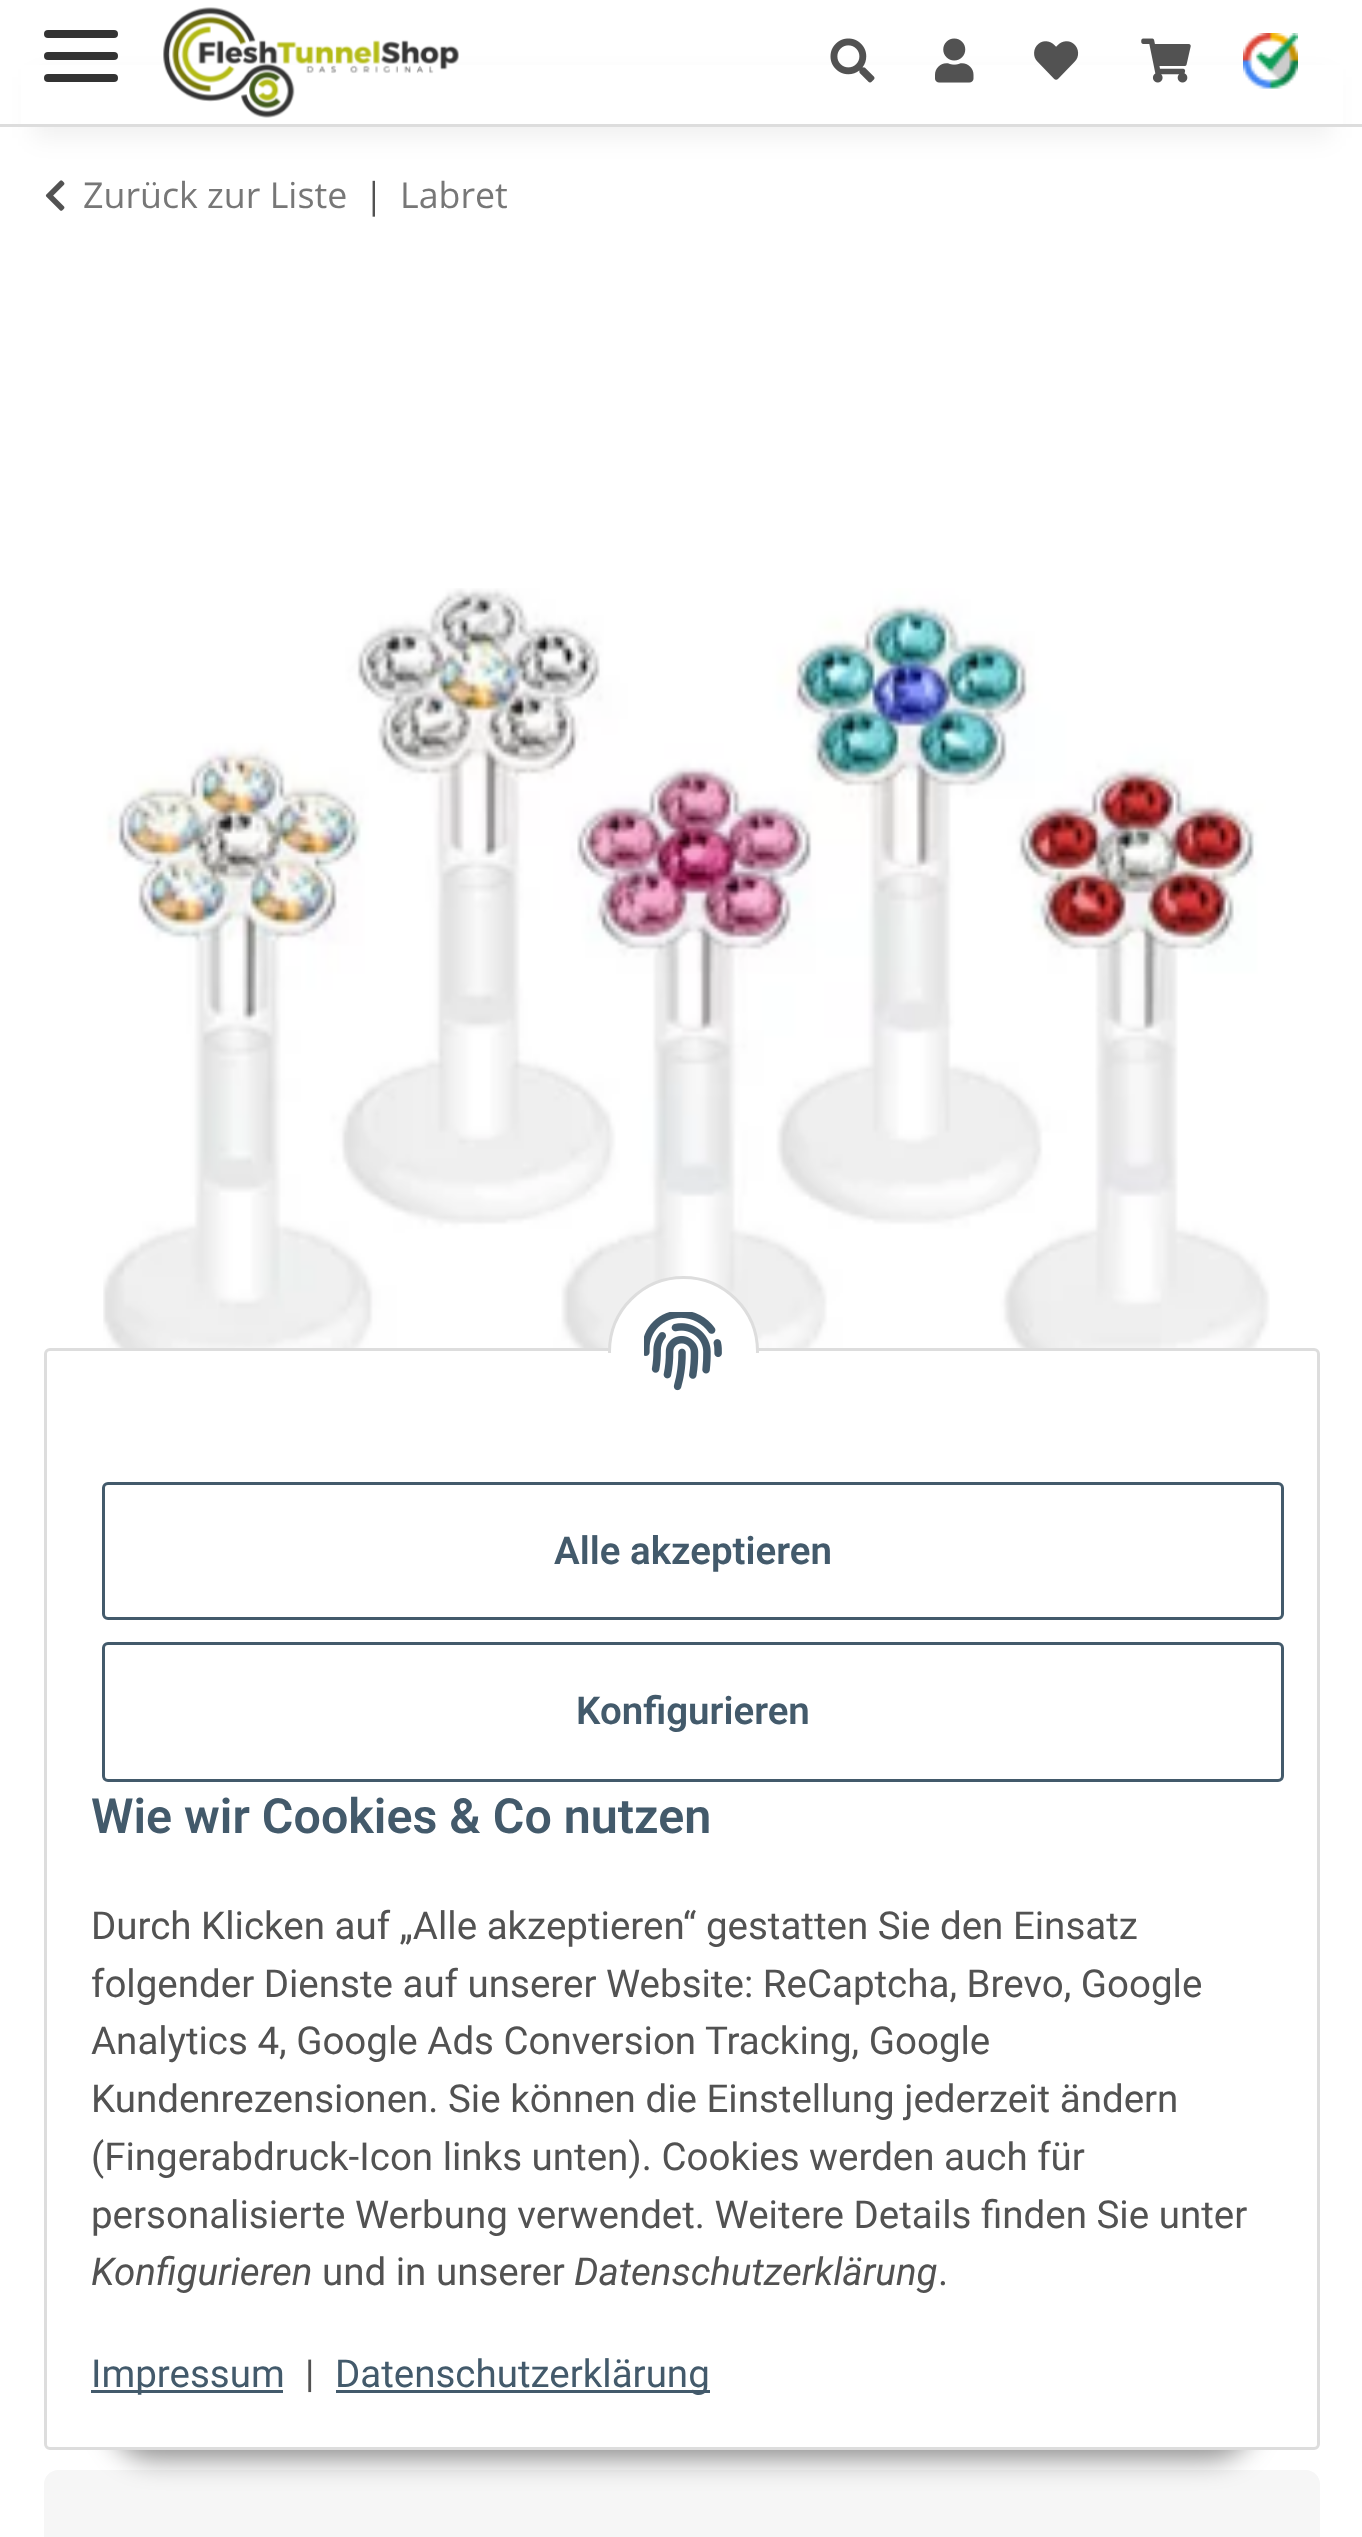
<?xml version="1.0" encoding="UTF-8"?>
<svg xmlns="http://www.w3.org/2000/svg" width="1362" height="2537">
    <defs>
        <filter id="blur1" x="-50%" y="-200%" width="200%" height="500%"><feGaussianBlur stdDeviation="12.5"/></filter>
        <filter id="blur2" x="-50%" y="-200%" width="200%" height="500%"><feGaussianBlur stdDeviation="14"/></filter>
    </defs>
    <rect width="100%" height="100%" fill="#FFFFFF"/>
    <rect x="33" y="77" width="1298" height="61" fill="#000000" fill-opacity="0.06" filter="url(#blur1)"/>
    <rect x="21" y="65" width="1322" height="59" fill="#FFFFFF"/>
    <rect x="0" y="124" width="1362" height="3" fill="#DDDDDD"/>
    <rect x="44" y="52" width="74" height="8" rx="4" fill="#333333"/>
    <rect x="44" y="30" width="74" height="8" rx="4" fill="#333333"/>
    <rect x="44" y="74" width="74" height="8" rx="4" fill="#333333"/>
    <image x="163" y="7" width="296" height="111" href="img_01.png"/>
    <image x="830" y="38" width="45" height="45" href="img_02.png"/>
    <image x="935" y="38" width="39" height="45" href="img_03.png"/>
    <image x="1034" y="41" width="45" height="39" href="img_04.png"/>
    <image x="1141" y="38" width="50" height="45" href="img_05.png"/>
    <image x="1243" y="33" width="55" height="56" href="img_06.png"/>
    <image x="45" y="180" width="20" height="31" href="img_07.png"/>
    <text x="83" y="208" font-family="Open Sans" font-size="35.75" fill="#777777">Zurück zur Liste</text>
    <text x="364" y="208" font-family="Open Sans" font-size="35.75" fill="#525252">|</text>
    <text x="400" y="208" font-family="Open Sans" font-size="35.75" fill="#777777">Labret</text>
    <image x="103" y="588" width="1167" height="760" href="img_08.png"/>
    <path d="M 58 2470 H 1306 C 1313.5 2470 1320 2476.5 1320 2484 V 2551 H 44 V 2484 C 44 2476.5 50.5 2470 58 2470 Z" fill="#F6F6F6"/>
    <rect x="110" y="2371" width="1144" height="88" rx="44" fill="#000000" fill-opacity="0.45" filter="url(#blur2)"/>
    <rect x="45.5" y="1349.5" width="1273" height="1099" rx="4.5" fill="#FFFFFF" stroke="#DDDDDD" stroke-width="3"/>
    <circle cx="683.5" cy="1351.5" r="74" fill="#FFFFFF" stroke="#DDDDDD" stroke-width="3"/>
    <rect x="608" y="1353" width="151" height="74" fill="#FFFFFF"/>
    <image x="644" y="1312" width="78" height="79" href="img_09.png"/>
    <rect x="103.5" y="1483.5" width="1179" height="135" rx="4.5" fill="none" stroke="#435A6B" stroke-width="3"/>
    <text x="554" y="1564" font-family="Roboto" font-size="38.5" font-weight="600" fill="#435A6B">Alle akzeptieren</text>
    <rect x="103.5" y="1643.5" width="1179" height="137" rx="4.5" fill="none" stroke="#435A6B" stroke-width="3"/>
    <text x="576" y="1724" font-family="Roboto" font-size="38.5" font-weight="600" fill="#435A6B">Konfigurieren</text>
    <text x="91" y="1833" font-family="Roboto" font-size="48.4" font-weight="600" fill="#435A6B">Wie wir Cookies &amp; Co nutzen</text>
    <text font-family="Roboto" font-size="38.5" fill="#525252">
        <tspan x="91" y="1939">Durch Klicken auf „Alle akzeptieren“ gestatten Sie den Einsatz</tspan>
        <tspan x="91" y="1997">folgender Dienste auf unserer Website: ReCaptcha, Brevo, Google</tspan>
        <tspan x="91" y="2054">Analytics 4, Google Ads Conversion Tracking, Google</tspan>
        <tspan x="91" y="2112">Kundenrezensionen. Sie können die Einstellung jederzeit ändern</tspan>
        <tspan x="91" y="2170">(Fingerabdruck-Icon links unten). Cookies werden auch für</tspan>
        <tspan x="91" y="2228">personalisierte Werbung verwendet. Weitere Details finden Sie unter</tspan>
    </text>
    <text x="91" y="2285" font-family="Roboto" font-size="38.5" font-style="italic" fill="#525252">Konfigurieren</text>
    <text x="322" y="2285" font-family="Roboto" font-size="38.5" fill="#525252">und in unserer</text>
    <text x="574" y="2285" font-family="Roboto" font-size="38.5" font-style="italic" fill="#525252">Datenschutzerklärung</text>
    <text x="938" y="2285" font-family="Roboto" font-size="38.5" fill="#525252">.</text>
    <rect x="91" y="2390" width="192" height="3" fill="#435A6B"/>
    <text x="91" y="2387" font-family="Roboto" font-size="38.5" fill="#435A6B">Impressum</text>
    <text x="305" y="2387" font-family="Roboto" font-size="38.5" fill="#525252">|</text>
    <rect x="336" y="2390" width="374" height="3" fill="#435A6B"/>
    <text x="335" y="2387" font-family="Roboto" font-size="38.5" fill="#435A6B">Datenschutzerklärung</text>
</svg>
